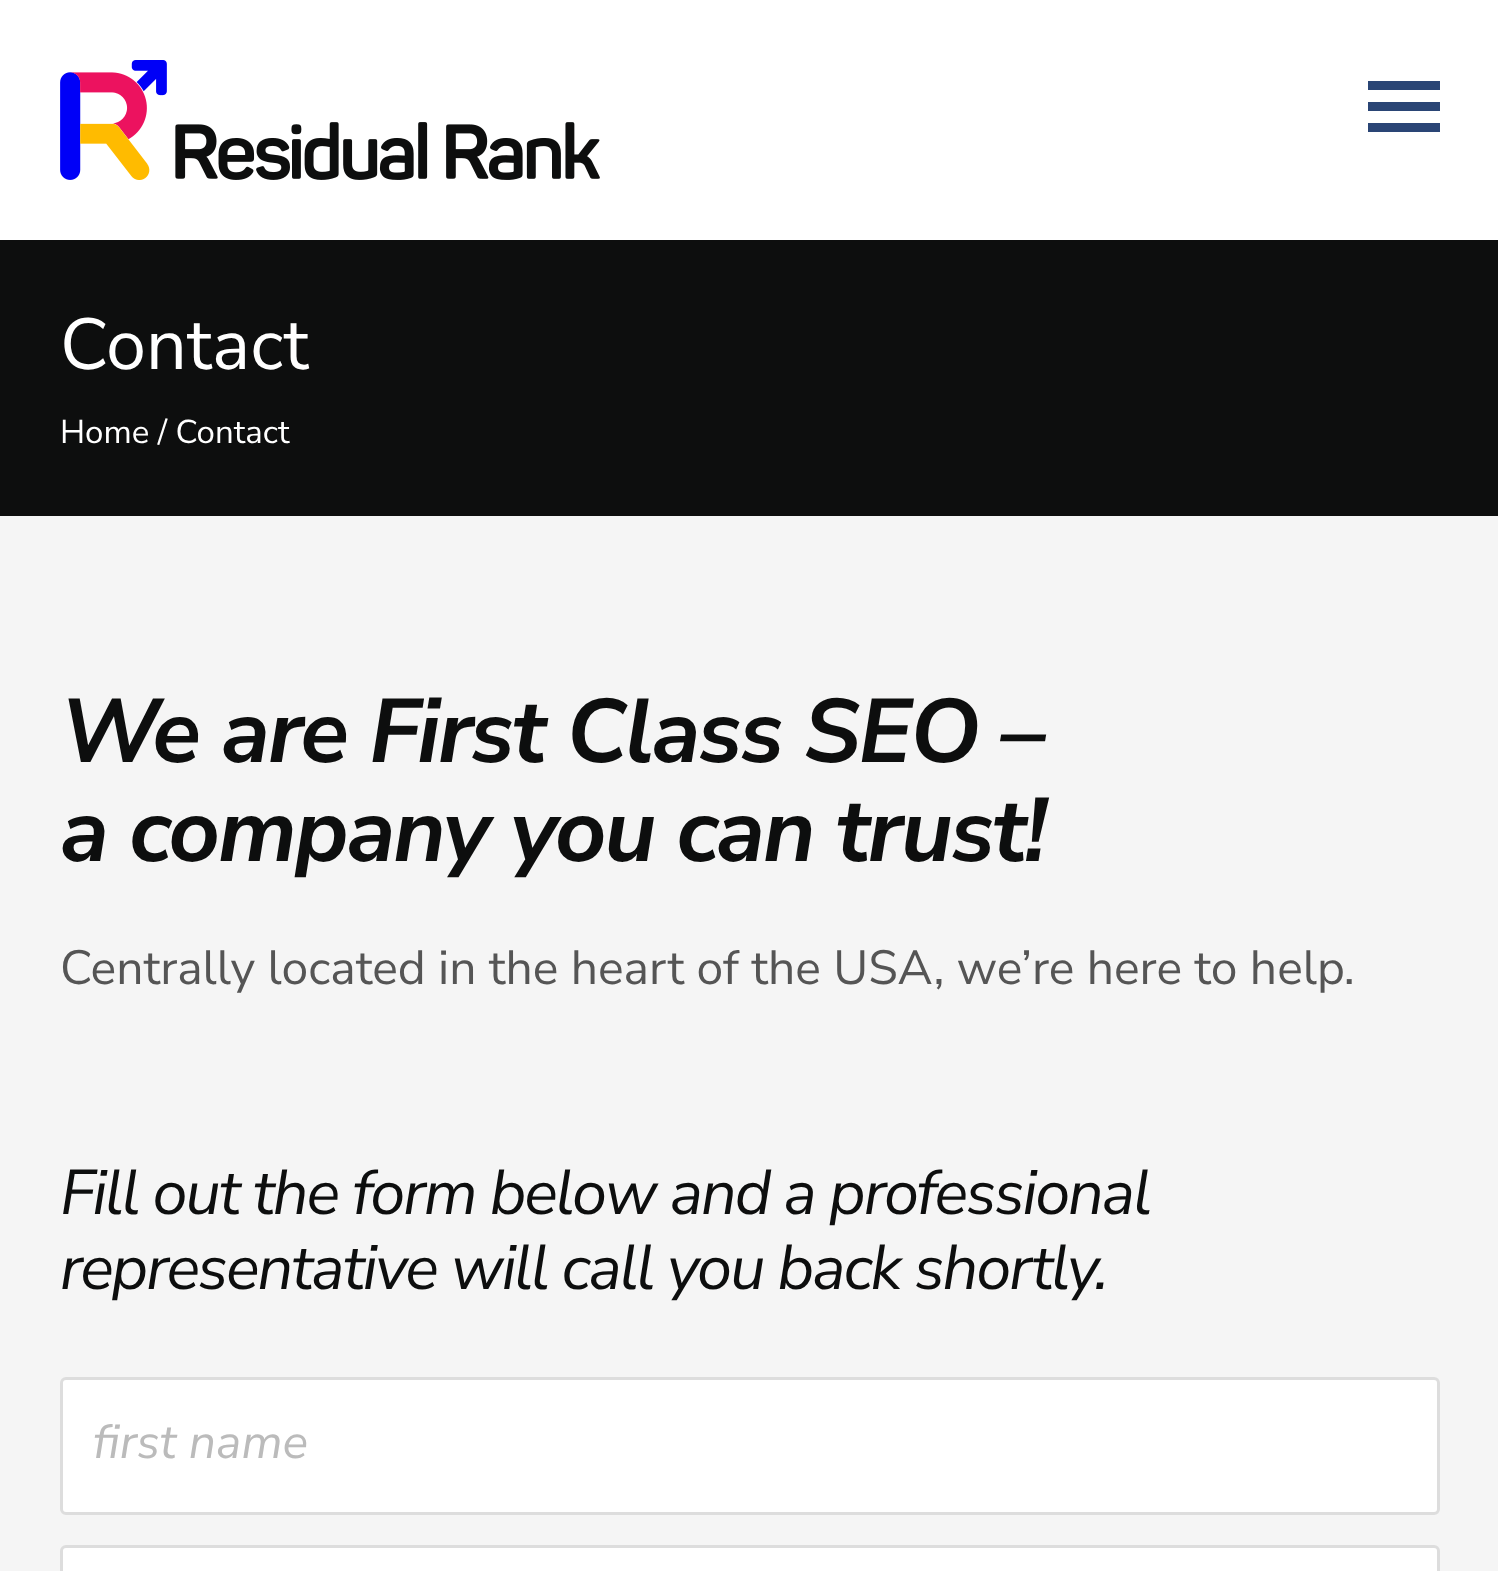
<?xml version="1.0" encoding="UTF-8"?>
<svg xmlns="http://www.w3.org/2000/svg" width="1498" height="1571">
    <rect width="100%" height="100%" fill="#FFFFFF"/>
    <image x="60" y="60" width="540" height="120" href="img_01.png"/>
    <rect x="1368" y="81" width="72" height="9" fill="#2A4575"/>
    <rect x="1368" y="102" width="72" height="9" fill="#2A4575"/>
    <rect x="1368" y="123" width="72" height="9" fill="#2A4575"/>
    <rect x="0" y="240" width="1498" height="276" fill="#0D0E0E"/>
    <text x="60" y="369" font-family="Nunito Sans" font-size="72" fill="#FFFFFF">Contact</text>
    <text x="60" y="443" font-family="Nunito Sans" font-size="33" fill="#FFFFFF">Home / Contact</text>
    <rect x="0" y="516" width="1498" height="1055" fill="#F5F5F5"/>
    <text font-family="Nunito Sans" font-size="90" font-weight="700" font-style="italic" letter-spacing="-2.25" fill="#0D0E0E">
        <tspan x="60" y="762">We are First Class SEO –</tspan>
        <tspan x="60" y="861">a company you can trust!</tspan>
    </text>
    <text x="60" y="984" font-family="Nunito Sans" font-size="48" fill="#555555">Centrally located in the heart of the USA, we’re here to help.</text>
    <text font-family="Nunito Sans" font-size="63" font-style="italic" letter-spacing="-2.05" fill="#0D0E0E">
        <tspan x="60" y="1214">Fill out the form below and a professional</tspan>
        <tspan x="60" y="1289">representative will call you back shortly.</tspan>
    </text>
    <rect x="61.5" y="1378.5" width="1377" height="135" rx="4.5" fill="#FFFFFF" stroke="#DDDDDD" stroke-width="3"/>
    <text x="93" y="1458" font-family="Nunito Sans" font-size="48" font-style="italic" fill="#BBBBBB">first name</text>
    <rect x="61.5" y="1546.5" width="1377" height="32" rx="4.5" fill="#FFFFFF" stroke="#DDDDDD" stroke-width="3"/>
</svg>
